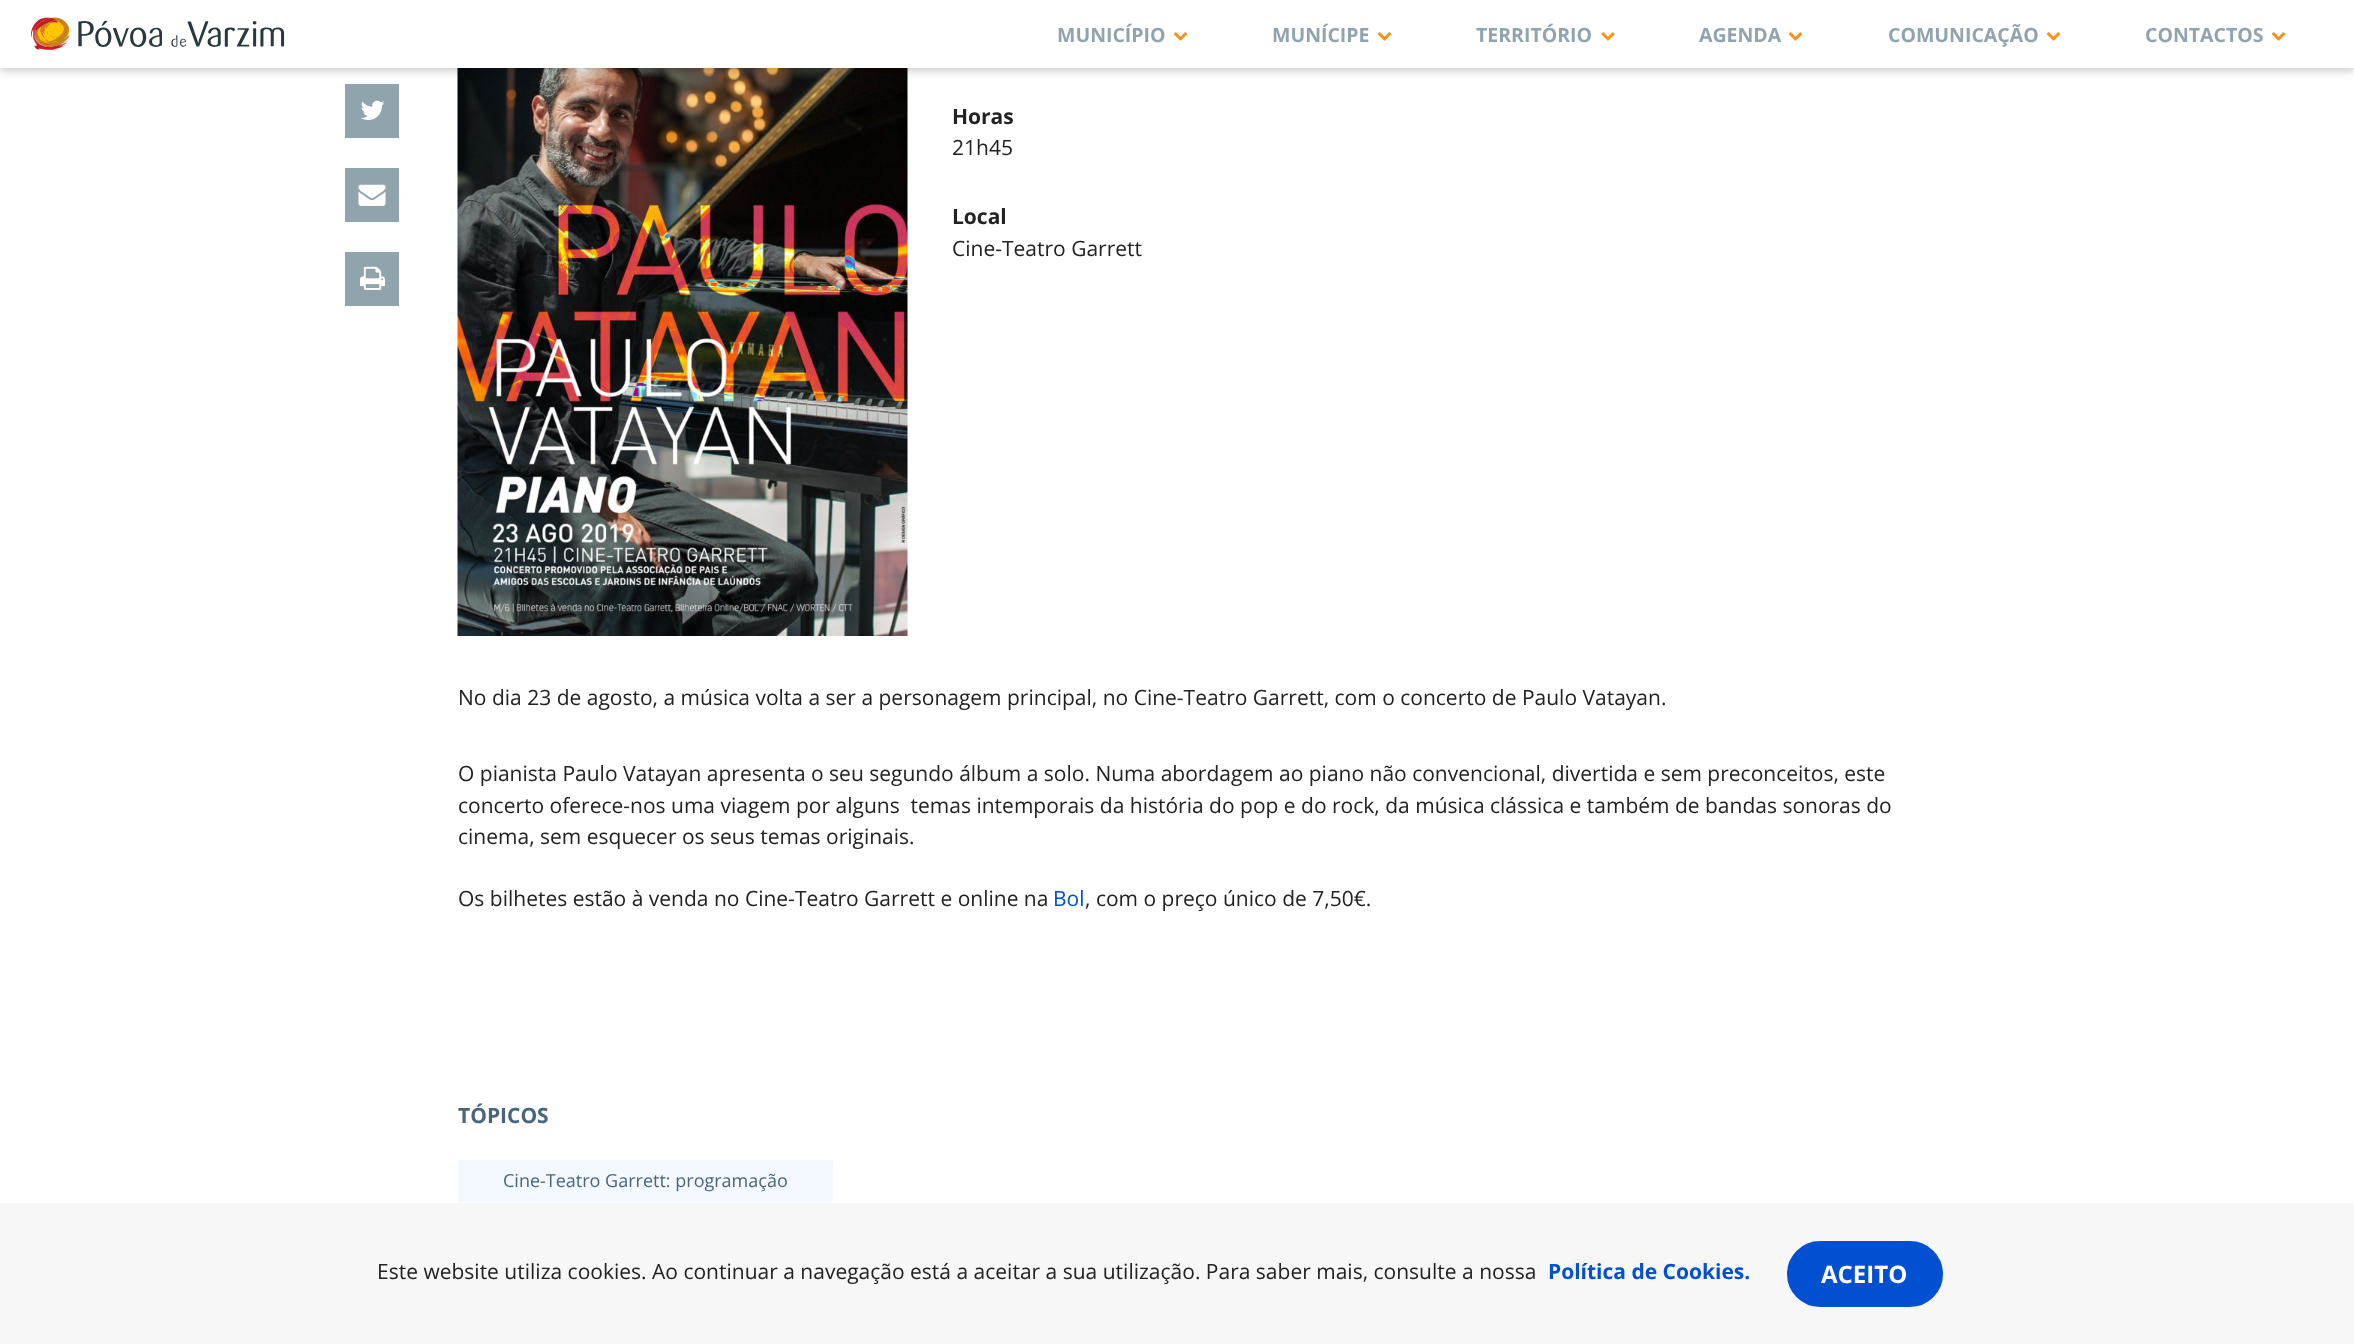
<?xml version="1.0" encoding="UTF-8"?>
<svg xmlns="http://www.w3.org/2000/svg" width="2354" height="1344">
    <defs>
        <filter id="blur1" x="-50%" y="-200%" width="200%" height="500%"><feGaussianBlur stdDeviation="4"/></filter>
    </defs>
    <rect width="100%" height="100%" fill="#FFFFFF"/>
    <image x="457" y="68" width="451" height="568" href="img_07.png"/>
    <rect x="0" y="3" width="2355" height="68" fill="#000000" fill-opacity="0.2" filter="url(#blur1)"/>
    <rect x="0" y="0" width="2354" height="68" fill="#FFFFFF"/>
    <image x="30" y="16" width="255" height="35" href="img_01.png"/>
    <text x="1057" y="42" font-family="Open Sans" font-size="19.5" font-weight="700" fill="#90A4AE">MUNICÍPIO</text>
    <image x="1173" y="32" width="15" height="9" href="img_02.png"/>
    <text x="1272" y="42" font-family="Open Sans" font-size="19.5" font-weight="700" fill="#90A4AE">MUNÍCIPE</text>
    <image x="1377" y="32" width="15" height="9" href="img_02.png"/>
    <text x="1476" y="42" font-family="Open Sans" font-size="19.5" font-weight="700" fill="#90A4AE">TERRITÓRIO</text>
    <image x="1601" y="32" width="14" height="9" href="img_03.png"/>
    <text x="1699" y="42" font-family="Open Sans" font-size="19.5" font-weight="700" fill="#90A4AE">AGENDA</text>
    <image x="1788" y="32" width="15" height="9" href="img_02.png"/>
    <text x="1888" y="42" font-family="Open Sans" font-size="19.5" font-weight="700" fill="#90A4AE">COMUNICAÇÃO</text>
    <image x="2046" y="32" width="15" height="9" href="img_02.png"/>
    <text x="2145" y="42" font-family="Open Sans" font-size="19.5" font-weight="700" fill="#90A4AE">CONTACTOS</text>
    <image x="2271" y="32" width="15" height="9" href="img_02.png"/>
    <rect x="345" y="84" width="54" height="54" fill="#90A4AE"/>
    <image x="361" y="100" width="24" height="20" href="img_04.png"/>
    <rect x="345" y="168" width="54" height="54" fill="#90A4AE"/>
    <image x="358" y="184" width="28" height="22" href="img_05.png"/>
    <rect x="345" y="252" width="54" height="54" fill="#90A4AE"/>
    <image x="360" y="266" width="26" height="24" href="img_06.png"/>
    <text x="952" y="124" font-family="Open Sans" font-size="21" font-weight="700" fill="#222222">Horas</text>
    <text x="952" y="155" font-family="Open Sans" font-size="21" fill="#222222">21h45</text>
    <text x="952" y="224" font-family="Open Sans" font-size="21" font-weight="700" fill="#222222">Local</text>
    <text x="952" y="256" font-family="Open Sans" font-size="21" fill="#222222">Cine-Teatro Garrett</text>
    <text x="458" y="705" font-family="Open Sans" font-size="21" fill="#222222">No dia 23 de agosto, a música volta a ser a personagem principal, no Cine-Teatro Garrett, com o concerto de Paulo Vatayan.</text>
    <text font-family="Open Sans" font-size="21" fill="#222222" xml:space="preserve"><tspan x="458" y="781">O pianista Paulo Vatayan apresenta o seu segundo álbum a solo. Numa abordagem ao piano não convencional, divertida e sem preconceitos, este</tspan><tspan x="458" y="813">concerto oferece-nos uma viagem por alguns  temas intemporais da história do pop e do rock, da música clássica e também de bandas sonoras do</tspan><tspan x="458" y="844">cinema, sem esquecer os seus temas originais.</tspan></text>
    <text x="458" y="906" font-family="Open Sans" font-size="21" fill="#222222">Os bilhetes estão à venda no Cine-Teatro Garrett e online na</text>
    <text x="1053" y="906" font-family="Open Sans" font-size="21" fill="#0250D2">Bol</text>
    <text x="1085" y="906" font-family="Open Sans" font-size="21" fill="#222222">, com o preço único de 7,50€.</text>
    <text x="458" y="1123" font-family="Open Sans" font-size="21" font-weight="700" fill="#49657A">TÓPICOS</text>
    <rect x="458" y="1160" width="375" height="42" rx="1.5" fill="#F3F9FF"/>
    <text x="503" y="1187" font-family="Open Sans" font-size="18" fill="#49657A">Cine-Teatro Garrett: programação</text>
    <rect x="0" y="1203" width="2354" height="141" fill="#F7F7F7"/>
    <text x="377" y="1279" font-family="Open Sans" font-size="21" fill="#222222">Este website utiliza cookies. Ao continuar a navegação está a aceitar a sua utilização. Para saber mais, consulte a nossa</text>
    <text x="1548" y="1279" font-family="Open Sans" font-size="21" font-weight="700" fill="#0250D2">Política de Cookies.</text>
    <rect x="1788" y="1242" width="154" height="64" rx="32" fill="#0250D2" stroke="#0250D2" stroke-width="2"/>
    <text x="1821" y="1283" font-family="Open Sans" font-size="24" font-weight="700" fill="#FFFFFF">ACEITO</text>
</svg>
